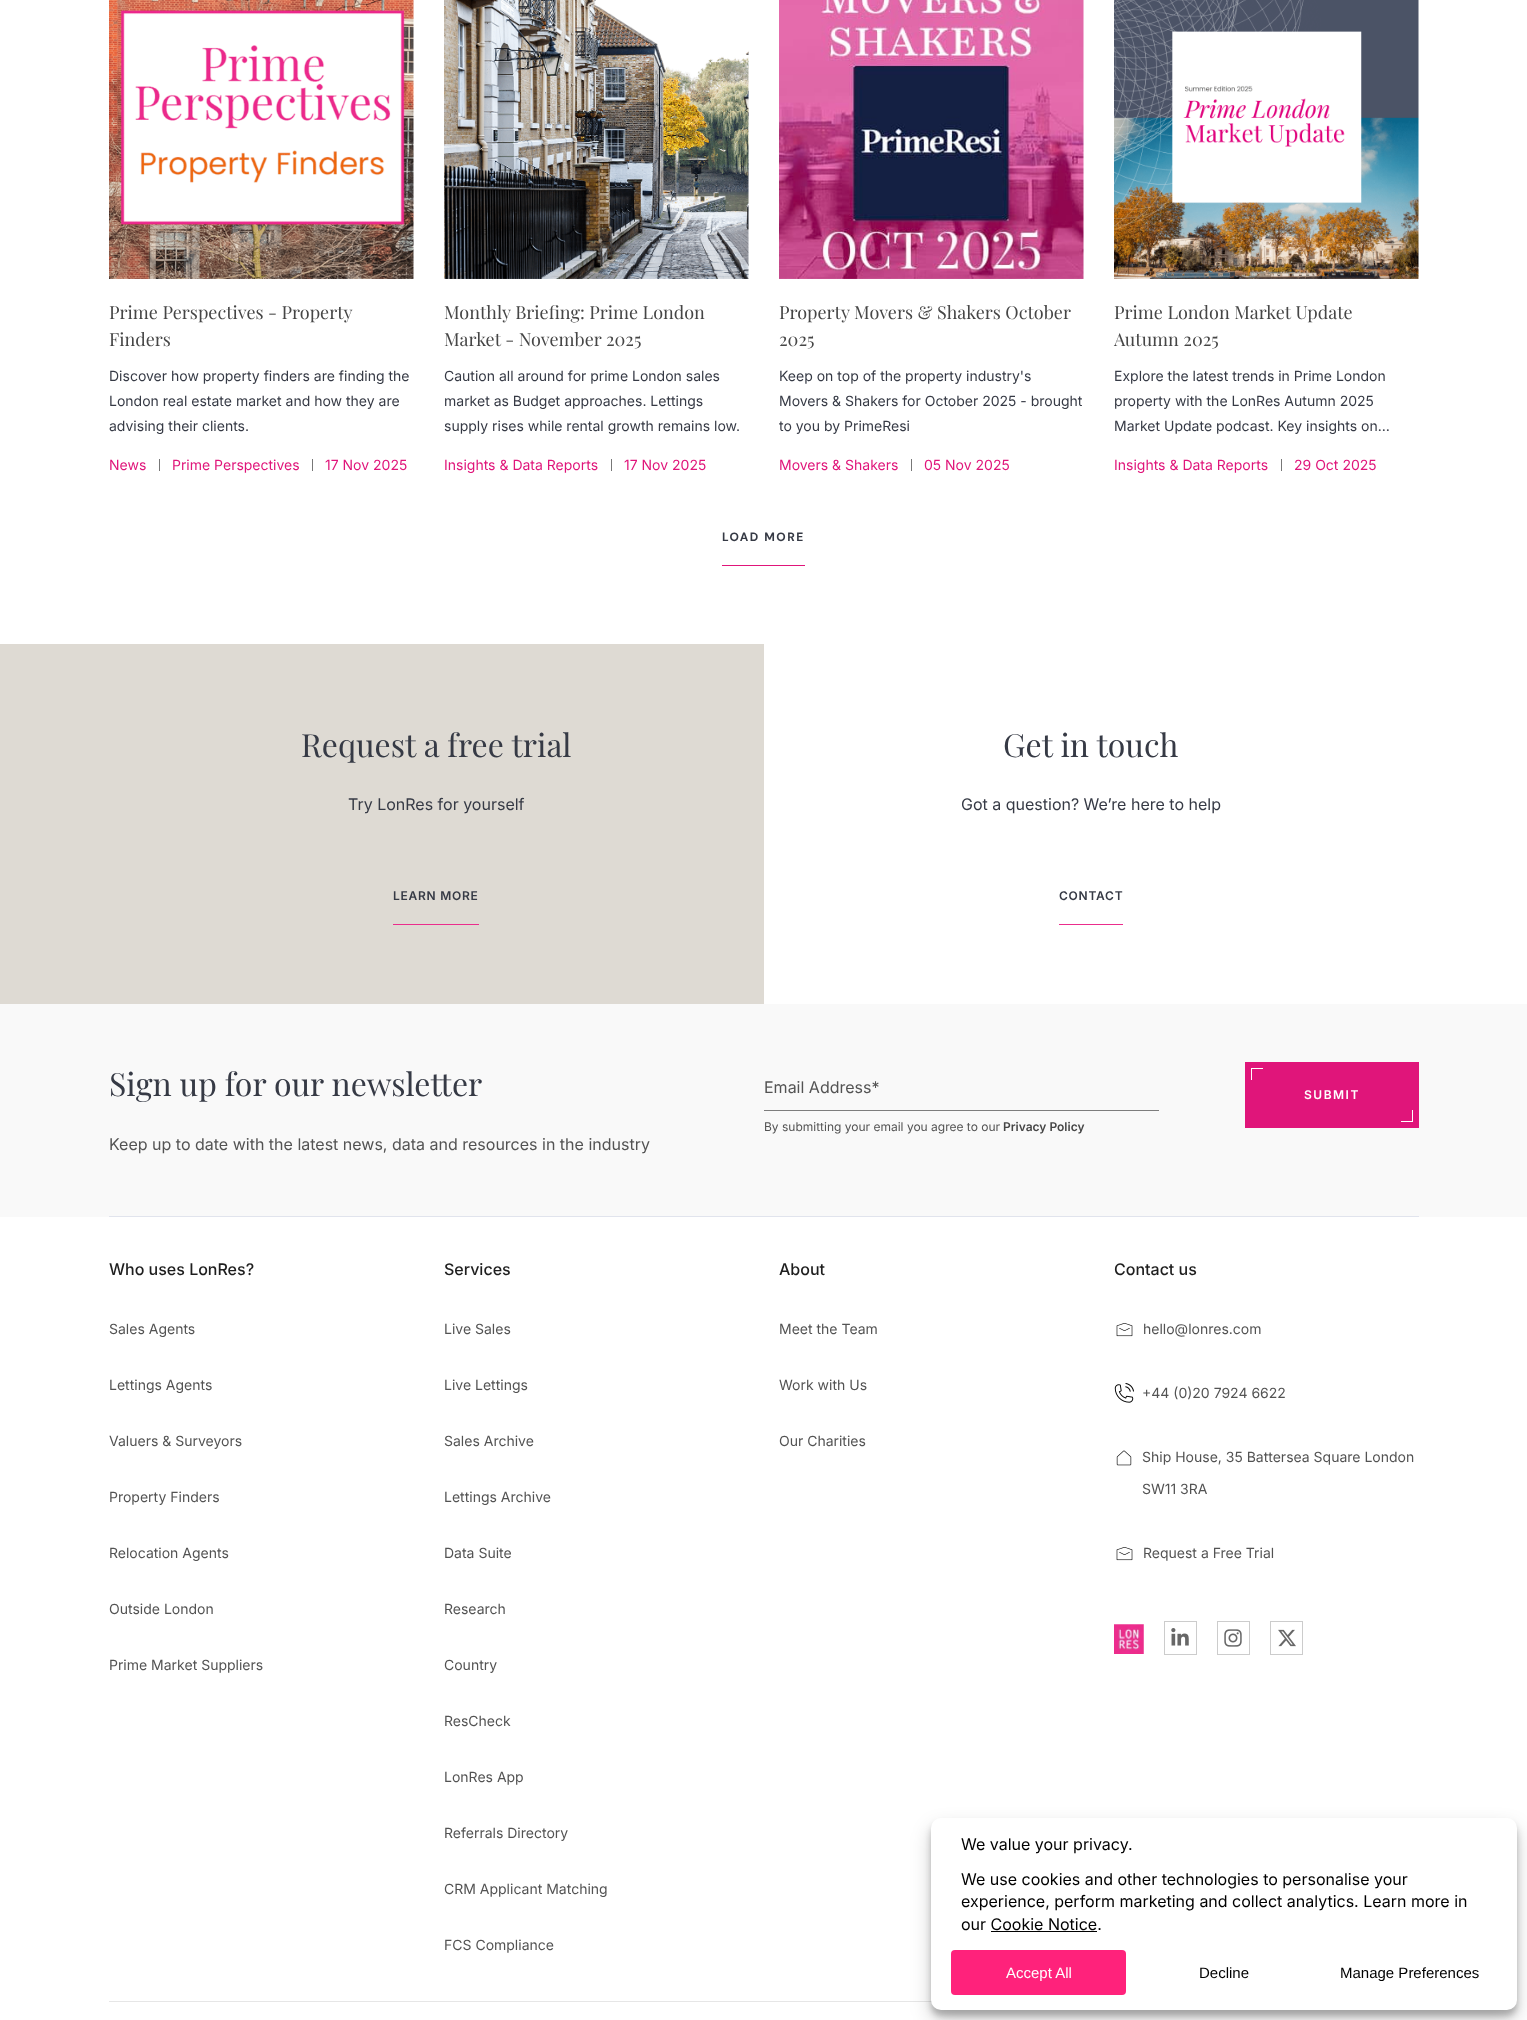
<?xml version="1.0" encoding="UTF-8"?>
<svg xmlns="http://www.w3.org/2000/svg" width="1527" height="2020">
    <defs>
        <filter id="blur1" x="-50%" y="-200%" width="200%" height="500%"><feGaussianBlur stdDeviation="3"/></filter>
        <filter id="blur2" x="-50%" y="-200%" width="200%" height="500%"><feGaussianBlur stdDeviation="10"/></filter>
    </defs>
    <rect width="100%" height="100%" fill="#FFFFFF"/>
    <image x="109" y="0" width="305" height="279" href="img_01.png"/>
    <text font-family="Playfair Display" font-size="18" fill="#464646">
        <tspan x="109" y="319">Prime Perspectives - Property</tspan>
        <tspan x="109" y="346">Finders</tspan>
    </text>
    <text font-family="Inter" font-size="14" fill="#363A45">
        <tspan x="109" y="381">Discover how property finders are finding the</tspan>
        <tspan x="109" y="406">London real estate market and how they are</tspan>
        <tspan x="109" y="431">advising their clients.</tspan>
    </text>
    <text x="109" y="470" font-family="Inter" font-size="14" fill="#E0157A">News</text>
    <rect x="159" y="459" width="1" height="12" fill="#777777"/>
    <text x="172" y="470" font-family="Inter" font-size="14" fill="#E0157A">Prime Perspectives</text>
    <rect x="312" y="459" width="1" height="12" fill="#777777"/>
    <text x="325" y="470" font-family="Inter" font-size="14" fill="#E0157A">17 Nov 2025</text>
    <image x="444" y="0" width="305" height="279" href="img_02.png"/>
    <text font-family="Playfair Display" font-size="18" fill="#464646">
        <tspan x="444" y="319">Monthly Briefing: Prime London</tspan>
        <tspan x="444" y="346">Market - November 2025</tspan>
    </text>
    <text font-family="Inter" font-size="14" fill="#363A45">
        <tspan x="444" y="381">Caution all around for prime London sales</tspan>
        <tspan x="444" y="406">market as Budget approaches. Lettings</tspan>
        <tspan x="444" y="431">supply rises while rental growth remains low.</tspan>
    </text>
    <text x="444" y="470" font-family="Inter" font-size="14" fill="#E0157A">Insights &amp; Data Reports</text>
    <rect x="611" y="459" width="1" height="12" fill="#777777"/>
    <text x="624" y="470" font-family="Inter" font-size="14" fill="#E0157A">17 Nov 2025</text>
    <image x="779" y="0" width="305" height="279" href="img_03.png"/>
    <text font-family="Playfair Display" font-size="18" fill="#464646">
        <tspan x="779" y="319">Property Movers &amp; Shakers October</tspan>
        <tspan x="779" y="346">2025</tspan>
    </text>
    <text font-family="Inter" font-size="14" fill="#363A45">
        <tspan x="779" y="381">Keep on top of the property industry's</tspan>
        <tspan x="779" y="406">Movers &amp; Shakers for October 2025 - brought</tspan>
        <tspan x="779" y="431">to you by PrimeResi</tspan>
    </text>
    <text x="779" y="470" font-family="Inter" font-size="14" fill="#E0157A">Movers &amp; Shakers</text>
    <rect x="911" y="459" width="1" height="12" fill="#777777"/>
    <text x="924" y="470" font-family="Inter" font-size="14" fill="#E0157A">05 Nov 2025</text>
    <image x="1114" y="0" width="305" height="279" href="img_04.png"/>
    <text font-family="Playfair Display" font-size="18" fill="#464646">
        <tspan x="1114" y="319">Prime London Market Update</tspan>
        <tspan x="1114" y="346">Autumn 2025</tspan>
    </text>
    <text font-family="Inter" font-size="14" fill="#363A45">
        <tspan x="1114" y="381">Explore the latest trends in Prime London</tspan>
        <tspan x="1114" y="406">property with the LonRes Autumn 2025</tspan>
        <tspan x="1114" y="431">Market Update podcast. Key insights on…</tspan>
    </text>
    <text x="1114" y="470" font-family="Inter" font-size="14" fill="#E0157A">Insights &amp; Data Reports</text>
    <rect x="1281" y="459" width="1" height="12" fill="#777777"/>
    <text x="1294" y="470" font-family="Inter" font-size="14" fill="#E0157A">29 Oct 2025</text>
    <rect x="722" y="565" width="83" height="1" fill="#E0157A"/>
    <text x="722" y="541" font-family="DM Sans" font-size="12" font-weight="700" letter-spacing="1.5" fill="#363A45">LOAD MORE</text>
    <rect x="0" y="644" width="764" height="360" fill="#DEDAD3"/>
    <text x="301" y="757" font-family="Playfair Display" font-size="32" fill="#363A45">Request a free trial</text>
    <text x="348" y="810" font-family="Inter" font-size="16" fill="#363A45">Try LonRes for yourself</text>
    <rect x="393" y="924" width="86" height="1" fill="#EB2D8C"/>
    <text x="393" y="900" font-family="Inter" font-size="12" font-weight="600" letter-spacing="0.75" fill="#363A45">LEARN MORE</text>
    <text x="1003" y="757" font-family="Playfair Display" font-size="32" fill="#363A45">Get in touch</text>
    <text x="961" y="810" font-family="Inter" font-size="16" fill="#363A45">Got a question? We’re here to help</text>
    <rect x="1059" y="924" width="64" height="1" fill="#EB2D8C"/>
    <text x="1059" y="900" font-family="Inter" font-size="12" font-weight="600" letter-spacing="0.75" fill="#363A45">CONTACT</text>
    <rect x="0" y="1004" width="1527" height="213" fill="#F9F9F9"/>
    <rect x="109" y="1216" width="1310" height="1" fill="#E1E4ED"/>
    <text x="109" y="1096" font-family="Playfair Display" font-size="32" fill="#363A45">Sign up for our newsletter</text>
    <text x="109" y="1150" font-family="Inter" font-size="16" fill="#535353">Keep up to date with the latest news, data and resources in the industry</text>
    <text x="764" y="1093" font-family="Inter" font-size="16" fill="#535353">Email Address*</text>
    <rect x="764" y="1110" width="395" height="1" fill="#7D7D7D"/>
    <rect x="1245" y="1062" width="174" height="66" fill="#E0157A"/>
    <rect x="1251" y="1068" width="12" height="1" fill="#FFFFFF"/>
    <rect x="1251" y="1068" width="1" height="12" fill="#FFFFFF"/>
    <text x="1304" y="1099" font-family="Inter" font-size="12" font-weight="600" letter-spacing="1.5" fill="#FFFFFF">SUBMIT</text>
    <rect x="1401" y="1121" width="12" height="1" fill="#FFFFFF"/>
    <rect x="1412" y="1110" width="1" height="12" fill="#FFFFFF"/>
    <text x="764" y="1131" font-family="Inter" font-size="12" fill="#535353">By submitting your email you agree to our</text>
    <text x="1003" y="1131" font-family="Inter" font-size="12" font-weight="600" fill="#464646">Privacy Policy</text>
    <text x="109" y="1275" font-family="Inter" font-size="16" font-weight="500" fill="#1E1E1E">Who uses LonRes?</text>
    <text x="109" y="1334" font-family="Inter" font-size="14" fill="#535353">Sales Agents</text>
    <text x="109" y="1390" font-family="Inter" font-size="14" fill="#535353">Lettings Agents</text>
    <text x="109" y="1446" font-family="Inter" font-size="14" fill="#535353">Valuers &amp; Surveyors</text>
    <text x="109" y="1502" font-family="Inter" font-size="14" fill="#535353">Property Finders</text>
    <text x="109" y="1558" font-family="Inter" font-size="14" fill="#535353">Relocation Agents</text>
    <text x="109" y="1614" font-family="Inter" font-size="14" fill="#535353">Outside London</text>
    <text x="109" y="1670" font-family="Inter" font-size="14" fill="#535353">Prime Market Suppliers</text>
    <text x="444" y="1275" font-family="Inter" font-size="16" font-weight="500" fill="#1E1E1E">Services</text>
    <text x="444" y="1334" font-family="Inter" font-size="14" fill="#535353">Live Sales</text>
    <text x="444" y="1390" font-family="Inter" font-size="14" fill="#535353">Live Lettings</text>
    <text x="444" y="1446" font-family="Inter" font-size="14" fill="#535353">Sales Archive</text>
    <text x="444" y="1502" font-family="Inter" font-size="14" fill="#535353">Lettings Archive</text>
    <text x="444" y="1558" font-family="Inter" font-size="14" fill="#535353">Data Suite</text>
    <text x="444" y="1614" font-family="Inter" font-size="14" fill="#535353">Research</text>
    <text x="444" y="1670" font-family="Inter" font-size="14" fill="#535353">Country</text>
    <text x="444" y="1726" font-family="Inter" font-size="14" fill="#535353">ResCheck</text>
    <text x="444" y="1782" font-family="Inter" font-size="14" fill="#535353">LonRes App</text>
    <text x="444" y="1838" font-family="Inter" font-size="14" fill="#535353">Referrals Directory</text>
    <text x="444" y="1894" font-family="Inter" font-size="14" fill="#535353">CRM Applicant Matching</text>
    <text x="444" y="1950" font-family="Inter" font-size="14" fill="#535353">FCS Compliance</text>
    <text x="779" y="1275" font-family="Inter" font-size="16" font-weight="500" fill="#1E1E1E">About</text>
    <text x="779" y="1334" font-family="Inter" font-size="14" fill="#535353">Meet the Team</text>
    <text x="779" y="1390" font-family="Inter" font-size="14" fill="#535353">Work with Us</text>
    <text x="779" y="1446" font-family="Inter" font-size="14" fill="#535353">Our Charities</text>
    <text x="1114" y="1275" font-family="Inter" font-size="16" font-weight="500" fill="#1E1E1E">Contact us</text>
    <image x="1116" y="1323" width="17" height="14" href="img_05.png"/>
    <text x="1143" y="1334" font-family="Inter" font-size="14" fill="#535353">hello@lonres.com</text>
    <image x="1114" y="1383" width="20" height="20" href="img_06.png"/>
    <text x="1142" y="1398" font-family="Inter" font-size="14" fill="#535353">+44 (0)20 7924 6622</text>
    <image x="1116" y="1450" width="16" height="16" href="img_07.png"/>
    <text x="1142" y="1462" font-family="Inter" font-size="14" fill="#535353">Ship House, 35 Battersea Square London</text>
    <text x="1142" y="1494" font-family="Inter" font-size="14" fill="#535353">SW11 3RA</text>
    <image x="1116" y="1547" width="17" height="14" href="img_05.png"/>
    <text x="1143" y="1558" font-family="Inter" font-size="14" fill="#535353">Request a Free Trial</text>
    <image x="1114" y="1624" width="30" height="30" href="img_08.png"/>
    <rect x="1164.5" y="1621.5" width="32" height="33" fill="none" stroke="#CCCCCC"/>
    <image x="1171" y="1628" width="18" height="18" href="img_09.png"/>
    <rect x="1217.5" y="1621.5" width="32" height="33" fill="none" stroke="#CCCCCC"/>
    <image x="1224" y="1629" width="18" height="18" href="img_10.png"/>
    <rect x="1270.5" y="1621.5" width="32" height="33" fill="none" stroke="#CCCCCC"/>
    <image x="1278" y="1629" width="18" height="18" href="img_11.png"/>
    <rect x="109" y="2001" width="823" height="1" fill="#E6E6E6"/>
    <rect x="931" y="1824" width="586" height="192" rx="10" fill="#000000" fill-opacity="0.23" filter="url(#blur1)"/>
    <rect x="931" y="1828" width="586" height="192" rx="10" fill="#000000" fill-opacity="0.19" filter="url(#blur2)"/>
    <rect x="931" y="1818" width="586" height="192" rx="10" fill="#FFFFFF"/>
    <text x="961" y="1850" font-family="Inter" font-size="16" fill="#000000">We value your privacy.</text>
    <text font-family="Inter" font-size="16" fill="#000000">
        <tspan x="961" y="1885">We use cookies and other technologies to personalise your</tspan>
        <tspan x="961" y="1907">experience, perform marketing and collect analytics. Learn more in</tspan>
        <tspan x="961" y="1930">our Cookie Notice.</tspan>
    </text>
    <rect x="991" y="1931" width="106" height="1" fill="#000000"/>
    <rect x="951" y="1950" width="175" height="45" rx="4" fill="#FF227B"/>
    <text x="1006" y="1978" font-family="Liberation Sans" font-size="15" fill="#FFFFFF">Accept All</text>
    <text x="1199" y="1978" font-family="Liberation Sans" font-size="15" fill="#000000">Decline</text>
    <text x="1340" y="1978" font-family="Liberation Sans" font-size="15" fill="#000000">Manage Preferences</text>
</svg>
